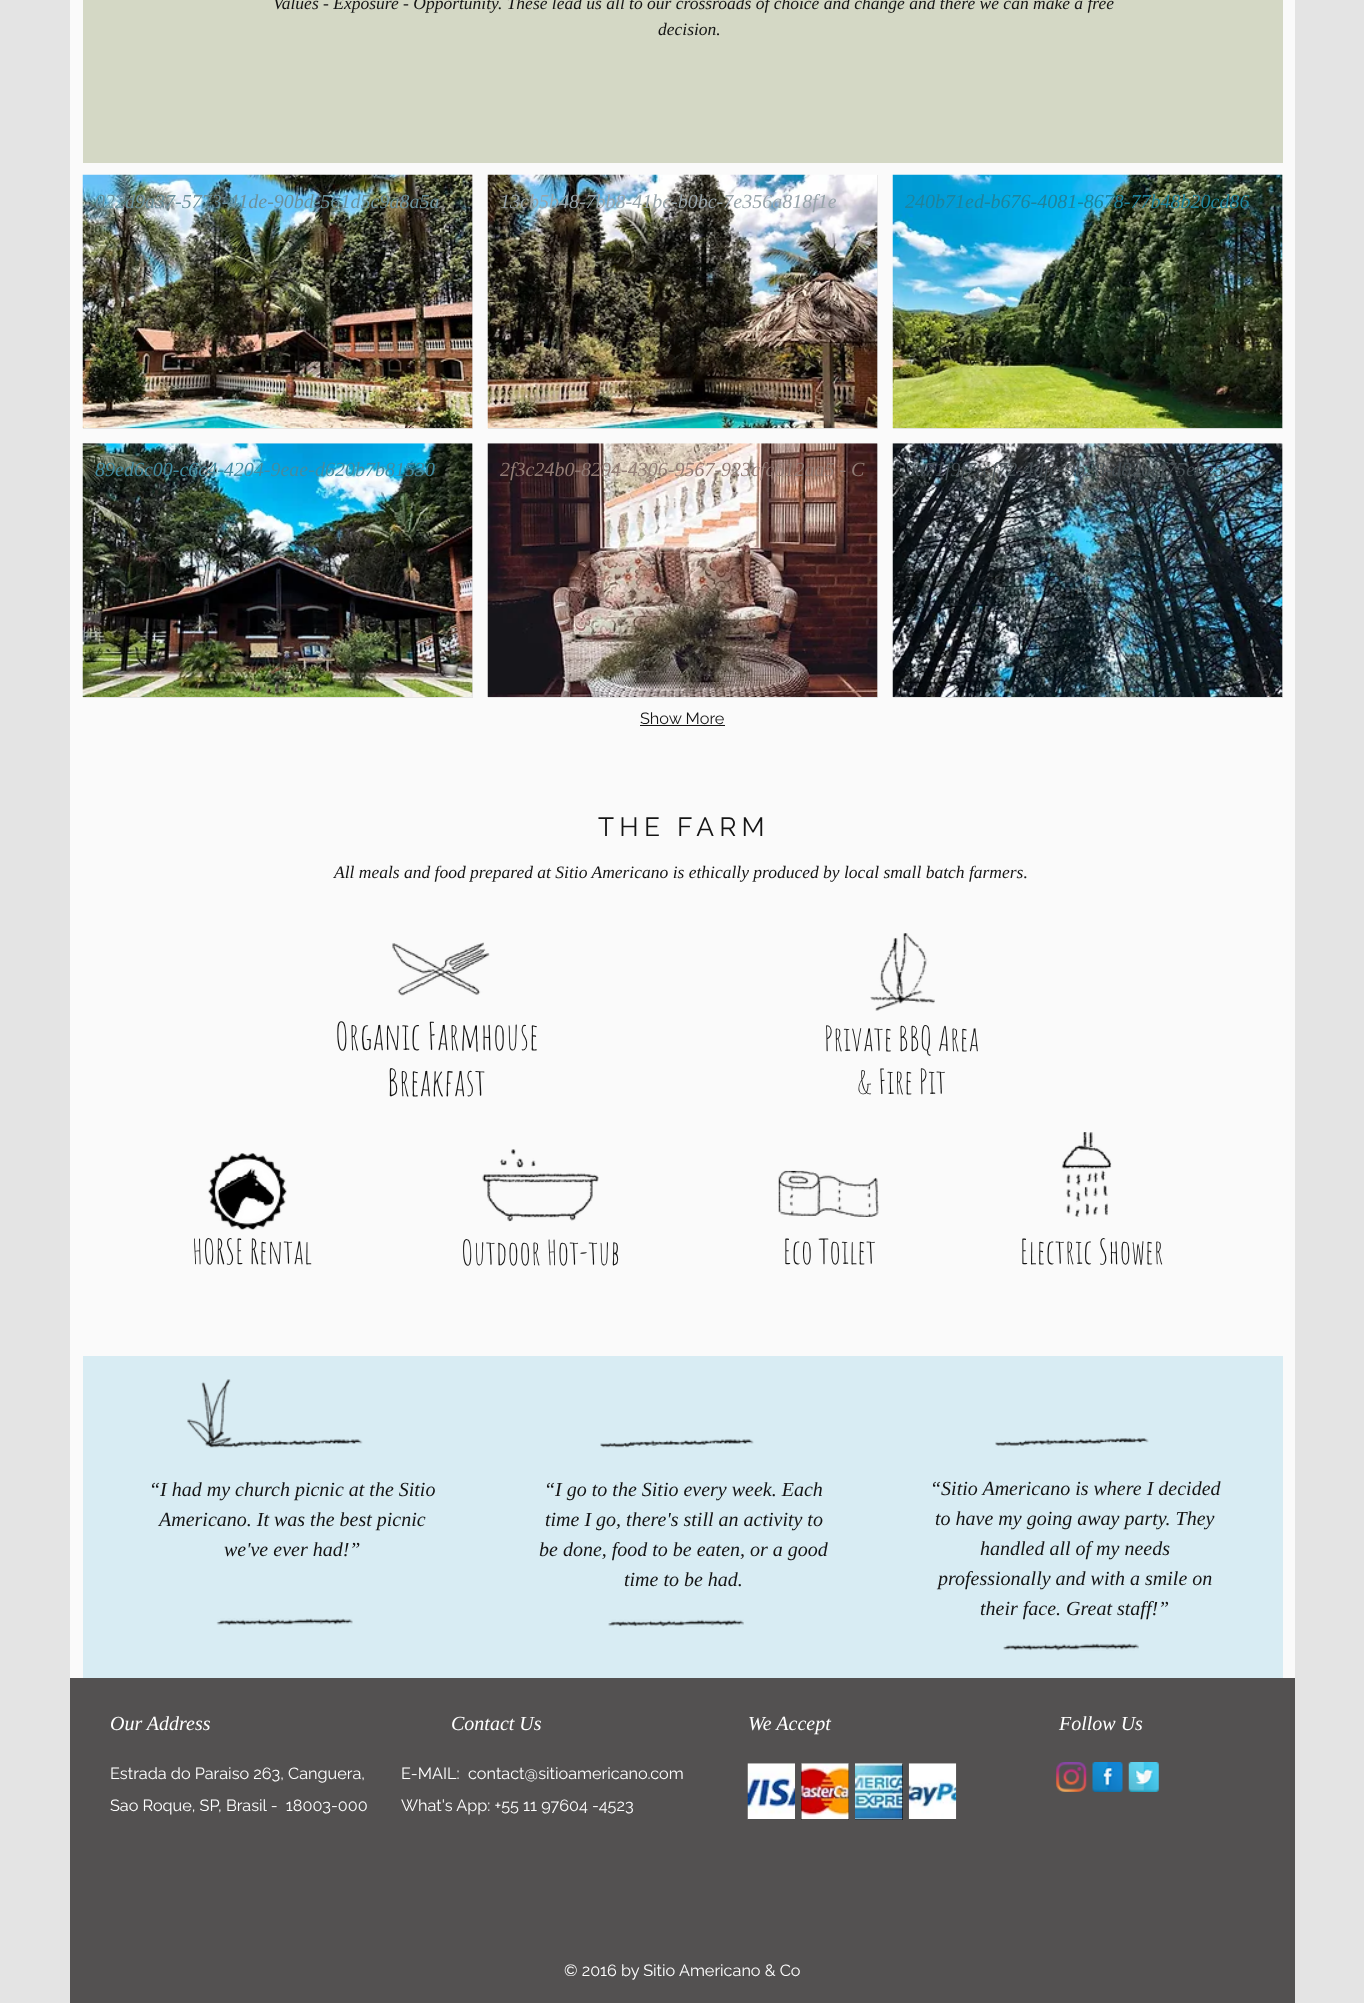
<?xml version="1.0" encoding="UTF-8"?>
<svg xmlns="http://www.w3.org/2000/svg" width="1364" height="2003">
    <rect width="100%" height="100%" fill="#E4E4E4"/>
    <rect x="70" y="0" width="1225" height="1678" fill="#FAFAFA"/>
    <rect x="83" y="0" width="1200" height="163" fill="#D4D8C5"/>
    <text x="273" y="9" font-family="Liberation Serif" font-size="17.5" font-style="italic" fill="#141414">Values - Exposure - Opportunity. These lead us all to our crossroads of choice and change and there we can make a free</text>
    <text x="658" y="35" font-family="Liberation Serif" font-size="17.5" font-style="italic" fill="#141414">decision.</text>
    <rect x="83" y="175" width="390" height="254" fill="#E4E4E4"/>
    <image x="82" y="174" width="391" height="255" href="img_01.png"/>
    <text x="95" y="208" font-family="Liberation Serif" font-size="20" font-style="italic" fill="#6A919D">022d9a37-5773-41de-90bd-561d5c9a8a5a</text>
    <rect x="488" y="175" width="390" height="254" fill="#E4E4E4"/>
    <image x="487" y="174" width="391" height="255" href="img_02.png"/>
    <text x="500" y="208" font-family="Liberation Serif" font-size="20" font-style="italic" fill="#98A5AB">13cb5b48-7bb8-41bc-b0bc-7e356a818f1e</text>
    <rect x="893" y="175" width="390" height="254" fill="#E4E4E4"/>
    <image x="892" y="174" width="391" height="255" href="img_03.png"/>
    <text x="905" y="208" font-family="Liberation Serif" font-size="20" font-style="italic" fill="#1E839C">240b71ed-b676-4081-8678-77b48b20cd86</text>
    <rect x="83" y="444" width="390" height="254" fill="#E4E4E4"/>
    <image x="82" y="443" width="391" height="254" href="img_04.png"/>
    <text x="95" y="476" font-family="Liberation Serif" font-size="20" font-style="italic" fill="#428CA2">89ed6c00-c6c4-4204-9eae-d620b7b81530</text>
    <rect x="488" y="444" width="390" height="254" fill="#E4E4E4"/>
    <image x="487" y="443" width="391" height="254" href="img_05.png"/>
    <text x="500" y="476" font-family="Liberation Serif" font-size="20" font-style="italic" fill="#927C75">2f3c24b0-8294-4306-9567-923cfc612aa5 - C</text>
    <rect x="893" y="444" width="390" height="254" fill="#E4E4E4"/>
    <image x="892" y="443" width="391" height="254" href="img_06.png"/>
    <text x="905" y="476" font-family="Liberation Serif" font-size="20" font-style="italic" fill="#475055">5a71f9f7-cf72-4dfc-9b28-d82acf75ebe5</text>
    <text x="640" y="724" font-family="Raleway" font-size="16.25" fill="#141414">Show More</text>
    <rect x="640" y="725" width="85" height="1" fill="#141414"/>
    <text x="598" y="836" font-family="Raleway" font-size="26.25" letter-spacing="5.25" fill="#141414">THE FARM</text>
    <text x="334" y="878" font-family="Liberation Serif" font-size="17.5" font-style="italic" fill="#141414">All meals and food prepared at Sitio Americano is ethically produced by local small batch farmers.</text>
    <image x="392" y="942" width="98" height="54" href="img_07.png"/>
    <image x="870" y="933" width="65" height="78" href="img_08.png"/>
    <text x="335" y="1050" font-family="Amatic SC" font-size="37.5" fill="#141414">Organic Farmhouse</text>
    <text x="387" y="1096" font-family="Amatic SC" font-size="37.5" fill="#141414">Breakfast</text>
    <text x="824" y="1051" font-family="Amatic SC" font-size="33.75" fill="#141414">Private BBQ Area</text>
    <text x="857" y="1094" font-family="Amatic SC" font-size="33.75" fill="#141414">&amp; Fire Pit</text>
    <image x="208" y="1153" width="79" height="77" href="img_09.png"/>
    <image x="482" y="1149" width="117" height="73" href="img_10.png"/>
    <image x="778" y="1170" width="101" height="47" href="img_11.png"/>
    <image x="1061" y="1132" width="51" height="85" href="img_12.png"/>
    <text x="192" y="1264" font-family="Amatic SC" font-size="33.75" fill="#141414">HORSE Rental</text>
    <text x="461" y="1265" font-family="Amatic SC" font-size="33.75" fill="#141414">Outdoor Hot-tub</text>
    <text x="783" y="1264" font-family="Amatic SC" font-size="33.75" fill="#141414">Eco Toilet</text>
    <text x="1020" y="1264" font-family="Amatic SC" font-size="33.75" fill="#141414">Electric Shower</text>
    <rect x="83" y="1356" width="1200" height="322" fill="#D8ECF3"/>
    <image x="187" y="1379" width="45" height="69" href="img_13.png"/>
    <image x="995" y="1438" width="154" height="9" href="img_14.png"/>
    <image x="208" y="1439" width="155" height="9" href="img_15.png"/>
    <image x="600" y="1439" width="154" height="9" href="img_16.png"/>
    <text x="149" y="1496" font-family="Liberation Serif" font-size="20" font-style="italic" fill="#141414">“I had my church picnic at the Sitio</text>
    <text x="159" y="1526" font-family="Liberation Serif" font-size="20" font-style="italic" fill="#141414">Americano. It was the best picnic</text>
    <text x="224" y="1556" font-family="Liberation Serif" font-size="20" font-style="italic" fill="#141414">we've ever had!”</text>
    <text x="544" y="1496" font-family="Liberation Serif" font-size="20" font-style="italic" fill="#141414">“I go to the Sitio every week. Each</text>
    <text x="545" y="1526" font-family="Liberation Serif" font-size="20" font-style="italic" fill="#141414">time I go, there's still an activity to</text>
    <text x="539" y="1556" font-family="Liberation Serif" font-size="20" font-style="italic" fill="#141414">be done, food to be eaten, or a good</text>
    <text x="624" y="1586" font-family="Liberation Serif" font-size="20" font-style="italic" fill="#141414">time to be had.</text>
    <text x="930" y="1495" font-family="Liberation Serif" font-size="20" font-style="italic" fill="#141414">“Sitio Americano is where I decided</text>
    <text x="935" y="1525" font-family="Liberation Serif" font-size="20" font-style="italic" fill="#141414">to have my going away party. They</text>
    <text x="980" y="1555" font-family="Liberation Serif" font-size="20" font-style="italic" fill="#141414">handled all of my needs</text>
    <text x="938" y="1585" font-family="Liberation Serif" font-size="20" font-style="italic" fill="#141414">professionally and with a smile on</text>
    <text x="980" y="1615" font-family="Liberation Serif" font-size="20" font-style="italic" fill="#141414">their face. Great staff!”</text>
    <image x="216" y="1618" width="137" height="8" href="img_17.png"/>
    <image x="608" y="1619" width="136" height="8" href="img_18.png"/>
    <image x="1003" y="1643" width="136" height="8" href="img_19.png"/>
    <rect x="70" y="1678" width="1225" height="325" fill="#535151"/>
    <text x="110" y="1730" font-family="Liberation Serif" font-size="20" font-style="italic" fill="#FFFFFF">Our Address</text>
    <text x="451" y="1730" font-family="Liberation Serif" font-size="20" font-style="italic" fill="#FFFFFF">Contact Us</text>
    <text x="748" y="1730" font-family="Liberation Serif" font-size="20" font-style="italic" fill="#FFFFFF">We Accept</text>
    <text x="1059" y="1730" font-family="Liberation Serif" font-size="20" font-style="italic" fill="#FFFFFF">Follow Us</text>
    <text font-family="Raleway" font-size="16.25" fill="#FFFFFF" xml:space="preserve"><tspan x="110" y="1779">Estrada do Paraiso 263, Canguera,</tspan><tspan x="110" y="1811">Sao Roque, SP, Brasil -  18003-000</tspan></text>
    <text x="401" y="1779" font-family="Raleway" font-size="16.25" fill="#FFFFFF">E-MAIL:</text>
    <text x="468" y="1779" font-family="Raleway" font-size="16.25" fill="#FFFFFF">contact@sitioamericano.com</text>
    <text x="401" y="1811" font-family="Raleway" font-size="16.25" fill="#FFFFFF">What's App: +55 11 97604 -4523</text>
    <rect x="748" y="1819" width="47" height="1" fill="#141414"/>
    <image x="747" y="1763" width="48" height="57" href="img_20.png"/>
    <rect x="801" y="1764" width="48" height="56" fill="#141414"/>
    <image x="801" y="1763" width="48" height="57" href="img_21.png"/>
    <rect x="855" y="1764" width="48" height="56" fill="#141414"/>
    <image x="855" y="1763" width="48" height="57" href="img_22.png"/>
    <rect x="909" y="1819" width="47" height="1" fill="#141414"/>
    <image x="908" y="1763" width="49" height="57" href="img_23.png"/>
    <image x="1056" y="1762" width="31" height="30" href="img_24.png"/>
    <image x="1092" y="1762" width="31" height="30" href="img_25.png"/>
    <image x="1128" y="1762" width="31" height="30" href="img_26.png"/>
    <text x="564" y="1976" font-family="Raleway" font-size="16.25" fill="#FFFFFF">© 2016 by Sitio Americano &amp; Co</text>
</svg>
